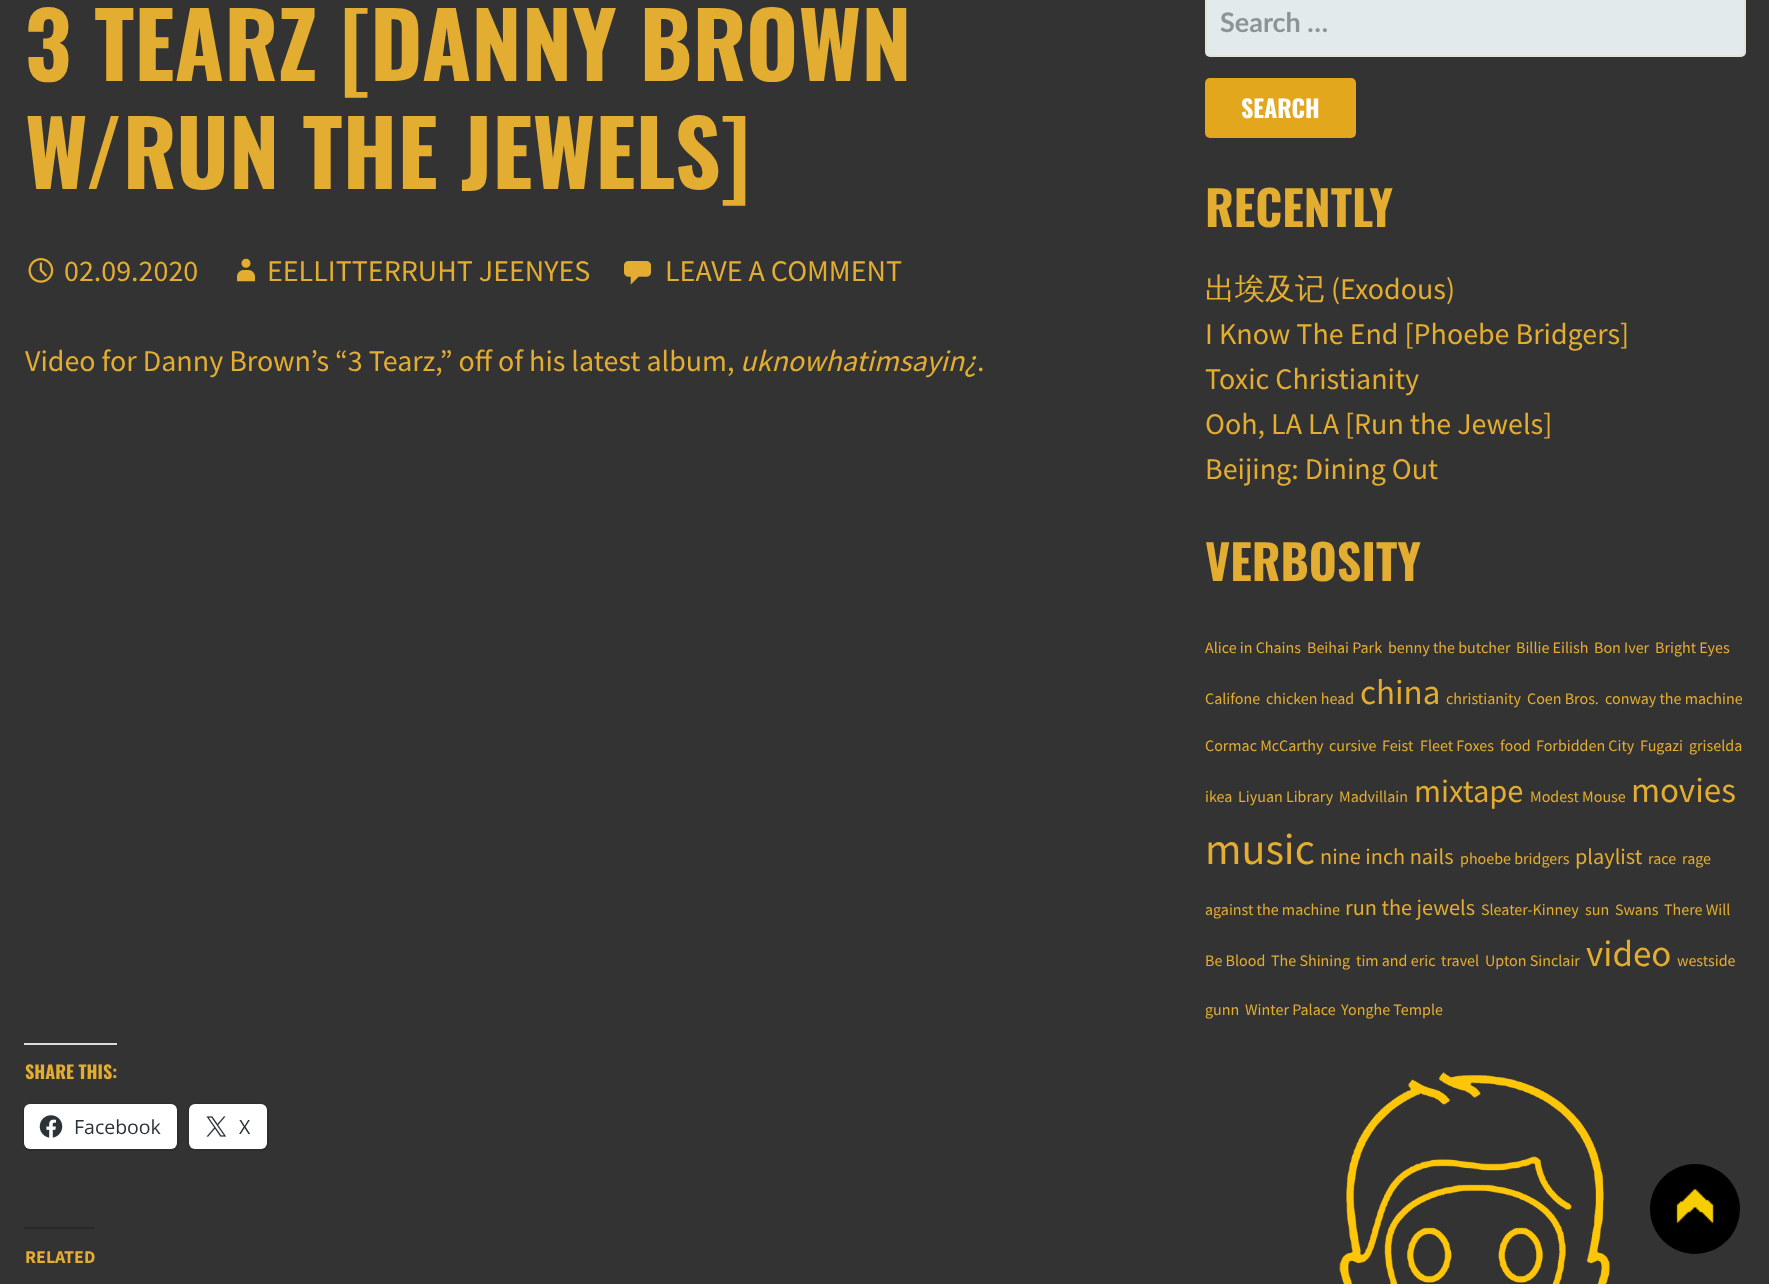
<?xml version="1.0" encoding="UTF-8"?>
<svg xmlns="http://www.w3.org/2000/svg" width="1769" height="1284">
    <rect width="100%" height="100%" fill="#333333"/>
    <text font-family="Oswald" font-size="90" font-weight="700" fill="#E3AD31">
        <tspan x="25" y="81">3 TEARZ [DANNY BROWN</tspan>
        <tspan x="25" y="189">W/RUN THE JEWELS]</tspan>
    </text>
    <image x="28" y="258" width="26" height="25" href="img_01.png"/>
    <text x="64" y="281" font-family="Source Sans Pro" font-size="30" fill="#E3AD31">02.09.2020</text>
    <image x="237" y="258" width="18" height="24" href="img_02.png"/>
    <text x="267" y="281" font-family="Source Sans Pro" font-size="30" fill="#E3AD31">EELLITTERRUHT JEENYES</text>
    <image x="624" y="261" width="27" height="24" href="img_03.png"/>
    <text x="665" y="281" font-family="Source Sans Pro" font-size="30" fill="#E3AD31">LEAVE A COMMENT</text>
    <text x="25" y="371" font-family="Source Sans Pro" font-size="30" fill="#E3AD31">Video for Danny Brown’s “3 Tearz,” off of his latest album,</text>
    <text x="740" y="371" font-family="Source Sans Pro" font-size="30" font-style="italic" fill="#E3AD31">uknowhatimsayin¿</text>
    <text x="977" y="371" font-family="Source Sans Pro" font-size="30" fill="#E3AD31">.</text>
    <rect x="24" y="1043" width="93" height="2" fill="#DCDCDE"/>
    <text x="25" y="1079" font-family="Oswald" font-size="18" font-weight="700" fill="#E3AD31">SHARE THIS:</text>
    <rect x="24" y="1104" width="154" height="46" rx="7" fill="none" stroke="#2D2D2D" stroke-width="2"/>
    <rect x="24" y="1104" width="153" height="45" rx="6" fill="#FFFFFF"/>
    <image x="39" y="1115" width="24" height="23" href="img_04.png"/>
    <text x="74" y="1134" font-family="Open Sans" font-size="19.5" fill="#2C3338">Facebook</text>
    <rect x="189" y="1104" width="79" height="46" rx="7" fill="none" stroke="#2D2D2D" stroke-width="2"/>
    <rect x="189" y="1104" width="78" height="45" rx="6" fill="#FFFFFF"/>
    <image x="206" y="1116" width="21" height="21" href="img_05.png"/>
    <text x="239" y="1134" font-family="Open Sans" font-size="19.5" fill="#2C3338">X</text>
    <rect x="24" y="1227" width="71" height="2" fill="#292929"/>
    <text x="25" y="1263" font-family="Source Sans Pro" font-size="18" font-weight="700" fill="#E3AD31">RELATED</text>
    <rect x="1205" y="-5" width="541" height="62" rx="5" fill="#E3EAEB"/>
    <rect x="1206" y="-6" width="539" height="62" rx="4" fill="none" stroke="#E3AD31" stroke-opacity="0.1" stroke-width="2"/>
    <text x="1220" y="32" font-family="Lato" font-size="27" font-weight="700" fill="#8B9596">Search …</text>
    <rect x="1205" y="78" width="151" height="60" rx="5" fill="#E2A71D"/>
    <text x="1241" y="118" font-family="Oswald" font-size="24" font-weight="700" fill="#FFFFFF">SEARCH</text>
    <text x="1205" y="227" font-family="Oswald" font-size="48" font-weight="700" fill="#E3AD31">RECENTLY</text>
    <text x="1205" y="299" font-family="WenQuanYi Zen Hei" font-size="30" font-weight="500" fill="#E3AD31">出埃及记</text>
    <text x="1331" y="299" font-family="Source Sans Pro" font-size="30" fill="#E3AD31">(Exodous)</text>
    <text font-family="Source Sans Pro" font-size="30" fill="#E3AD31">
        <tspan x="1205" y="344">I Know The End [Phoebe Bridgers]</tspan>
        <tspan x="1205" y="389">Toxic Christianity</tspan>
        <tspan x="1205" y="434">Ooh, LA LA [Run the Jewels]</tspan>
        <tspan x="1205" y="479">Beijing: Dining Out</tspan>
    </text>
    <text x="1205" y="581" font-family="Oswald" font-size="48" font-weight="700" fill="#E3AD31">VERBOSITY</text>
    <text x="1205" y="653" font-family="Source Sans Pro" font-size="16" fill="#E3AD31">Alice in Chains</text>
    <text x="1307" y="653" font-family="Source Sans Pro" font-size="16" fill="#E3AD31">Beihai Park</text>
    <text x="1388" y="653" font-family="Source Sans Pro" font-size="16" fill="#E3AD31">benny the butcher</text>
    <text x="1516" y="653" font-family="Source Sans Pro" font-size="16" fill="#E3AD31">Billie Eilish</text>
    <text x="1594" y="653" font-family="Source Sans Pro" font-size="16" fill="#E3AD31">Bon Iver</text>
    <text x="1655" y="653" font-family="Source Sans Pro" font-size="16" fill="#E3AD31">Bright Eyes</text>
    <text x="1205" y="704" font-family="Source Sans Pro" font-size="16" fill="#E3AD31">Califone</text>
    <text x="1266" y="704" font-family="Source Sans Pro" font-size="16" fill="#E3AD31">chicken head</text>
    <text x="1360" y="704" font-family="Source Sans Pro" font-size="35" fill="#E3AD31">china</text>
    <text x="1446" y="704" font-family="Source Sans Pro" font-size="16" fill="#E3AD31">christianity</text>
    <text x="1527" y="704" font-family="Source Sans Pro" font-size="16" fill="#E3AD31">Coen Bros.</text>
    <text x="1605" y="704" font-family="Source Sans Pro" font-size="16" fill="#E3AD31">conway the machine</text>
    <text x="1205" y="751" font-family="Source Sans Pro" font-size="16" fill="#E3AD31">Cormac McCarthy</text>
    <text x="1329" y="751" font-family="Source Sans Pro" font-size="16" fill="#E3AD31">cursive</text>
    <text x="1382" y="751" font-family="Source Sans Pro" font-size="16" fill="#E3AD31">Feist</text>
    <text x="1420" y="751" font-family="Source Sans Pro" font-size="16" fill="#E3AD31">Fleet Foxes</text>
    <text x="1500" y="751" font-family="Source Sans Pro" font-size="16" fill="#E3AD31">food</text>
    <text x="1536" y="751" font-family="Source Sans Pro" font-size="16" fill="#E3AD31">Forbidden City</text>
    <text x="1640" y="751" font-family="Source Sans Pro" font-size="16" fill="#E3AD31">Fugazi</text>
    <text x="1689" y="751" font-family="Source Sans Pro" font-size="16" fill="#E3AD31">griselda</text>
    <text x="1205" y="802" font-family="Source Sans Pro" font-size="16" fill="#E3AD31">ikea</text>
    <text x="1238" y="802" font-family="Source Sans Pro" font-size="16" fill="#E3AD31">Liyuan Library</text>
    <text x="1339" y="802" font-family="Source Sans Pro" font-size="16" fill="#E3AD31">Madvillain</text>
    <text x="1414" y="802" font-family="Source Sans Pro" font-size="32.5" fill="#E3AD31">mixtape</text>
    <text x="1530" y="802" font-family="Source Sans Pro" font-size="16" fill="#E3AD31">Modest Mouse</text>
    <text x="1631" y="802" font-family="Source Sans Pro" font-size="35" fill="#E3AD31">movies</text>
    <text x="1205" y="864" font-family="Source Sans Pro" font-size="44" fill="#E3AD31">music</text>
    <text x="1320" y="864" font-family="Source Sans Pro" font-size="22.25" fill="#E3AD31">nine inch nails</text>
    <text x="1460" y="864" font-family="Source Sans Pro" font-size="16" fill="#E3AD31">phoebe bridgers</text>
    <text x="1575" y="864" font-family="Source Sans Pro" font-size="22.25" fill="#E3AD31">playlist</text>
    <text x="1648" y="864" font-family="Source Sans Pro" font-size="16" fill="#E3AD31">race</text>
    <text x="1682" y="864" font-family="Source Sans Pro" font-size="16" fill="#E3AD31">rage</text>
    <text x="1205" y="915" font-family="Source Sans Pro" font-size="16" fill="#E3AD31">against the machine</text>
    <text x="1345" y="915" font-family="Source Sans Pro" font-size="22.25" fill="#E3AD31">run the jewels</text>
    <text x="1481" y="915" font-family="Source Sans Pro" font-size="16" fill="#E3AD31">Sleater-Kinney</text>
    <text x="1585" y="915" font-family="Source Sans Pro" font-size="16" fill="#E3AD31">sun</text>
    <text x="1615" y="915" font-family="Source Sans Pro" font-size="16" fill="#E3AD31">Swans</text>
    <text x="1664" y="915" font-family="Source Sans Pro" font-size="16" fill="#E3AD31">There Will</text>
    <text x="1205" y="966" font-family="Source Sans Pro" font-size="16" fill="#E3AD31">Be Blood</text>
    <text x="1271" y="966" font-family="Source Sans Pro" font-size="16" fill="#E3AD31">The Shining</text>
    <text x="1356" y="966" font-family="Source Sans Pro" font-size="16" fill="#E3AD31">tim and eric</text>
    <text x="1441" y="966" font-family="Source Sans Pro" font-size="16" fill="#E3AD31">travel</text>
    <text x="1485" y="966" font-family="Source Sans Pro" font-size="16" fill="#E3AD31">Upton Sinclair</text>
    <text x="1586" y="966" font-family="Source Sans Pro" font-size="37" fill="#E3AD31">video</text>
    <text x="1677" y="966" font-family="Source Sans Pro" font-size="16" fill="#E3AD31">westside</text>
    <text x="1205" y="1015" font-family="Source Sans Pro" font-size="16" fill="#E3AD31">gunn</text>
    <text x="1245" y="1015" font-family="Source Sans Pro" font-size="16" fill="#E3AD31">Winter Palace</text>
    <text x="1341" y="1015" font-family="Source Sans Pro" font-size="16" fill="#E3AD31">Yonghe Temple</text>
    <image x="1339" y="1072" width="271" height="212" href="img_06.png"/>
    <circle cx="1695" cy="1209" r="45" fill="#000000"/>
    <image x="1676" y="1189" width="38" height="34" href="img_07.png"/>
</svg>
